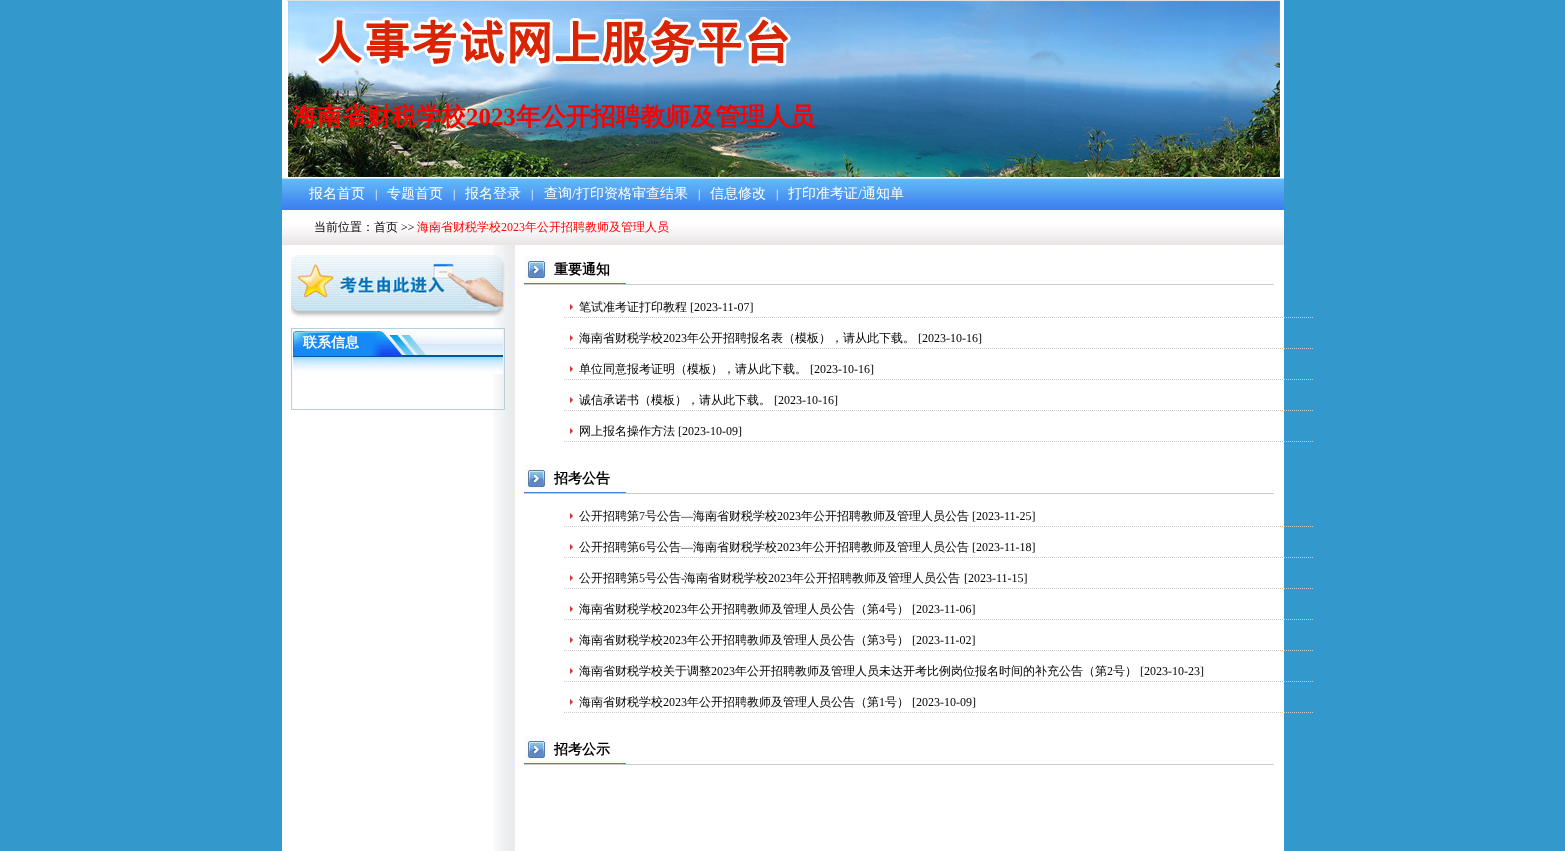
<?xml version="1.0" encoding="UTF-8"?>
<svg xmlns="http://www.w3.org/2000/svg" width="1565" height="851">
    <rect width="100%" height="100%" fill="#3399CC"/>
    <rect x="282" y="0" width="1002" height="178" fill="#FFFFFF"/>
    <image x="287" y="0" width="993" height="177" href="img_01.png"/>
    <text x="292" y="125" font-family="WenQuanYi Zen Hei" font-size="24.9" font-weight="700" fill="#FF0000">海南省财税学校</text>
    <text x="466" y="125" font-family="Liberation Serif" font-size="24.9" font-weight="700" fill="#FF0000">2023</text>
    <text x="516" y="125" font-family="WenQuanYi Zen Hei" font-size="24.9" font-weight="700" fill="#FF0000">年公开招聘教师及管理人员</text>
    <image x="282" y="178" width="1002" height="32" href="img_02.png"/>
    <text x="309" y="198" font-family="WenQuanYi Zen Hei" font-size="14" font-weight="500" fill="#FFFFFF">报名首页</text>
    <text x="375" y="198" font-family="Liberation Serif" font-size="12" fill="#FFFFFF">|</text>
    <text x="387" y="198" font-family="WenQuanYi Zen Hei" font-size="14" font-weight="500" fill="#FFFFFF">专题首页</text>
    <text x="453" y="198" font-family="Liberation Serif" font-size="12" fill="#FFFFFF">|</text>
    <text x="465" y="198" font-family="WenQuanYi Zen Hei" font-size="14" font-weight="500" fill="#FFFFFF">报名登录</text>
    <text x="531" y="198" font-family="Liberation Serif" font-size="12" fill="#FFFFFF">|</text>
    <text x="544" y="198" font-family="WenQuanYi Zen Hei" font-size="14" font-weight="500" fill="#FFFFFF">查询</text>
    <text x="572" y="198" font-family="Liberation Serif" font-size="14" fill="#FFFFFF">/</text>
    <text x="576" y="198" font-family="WenQuanYi Zen Hei" font-size="14" font-weight="500" fill="#FFFFFF">打印资格审查结果</text>
    <text x="698" y="198" font-family="Liberation Serif" font-size="12" fill="#FFFFFF">|</text>
    <text x="710" y="198" font-family="WenQuanYi Zen Hei" font-size="14" font-weight="500" fill="#FFFFFF">信息修改</text>
    <text x="776" y="198" font-family="Liberation Serif" font-size="12" fill="#FFFFFF">|</text>
    <text x="788" y="198" font-family="WenQuanYi Zen Hei" font-size="14" font-weight="500" fill="#FFFFFF">打印准考证</text>
    <text x="858" y="198" font-family="Liberation Serif" font-size="14" fill="#FFFFFF">/</text>
    <text x="862" y="198" font-family="WenQuanYi Zen Hei" font-size="14" font-weight="500" fill="#FFFFFF">通知单</text>
    <rect x="282" y="245" width="1002" height="606" fill="#FFFFFF"/>
    <image x="493" y="245" width="22" height="606" href="img_03.png"/>
    <image x="282" y="210" width="1002" height="35" href="img_04.png"/>
    <text x="314" y="231" font-family="WenQuanYi Zen Hei" font-size="12" font-weight="500" fill="#000000">当前位置：首页</text>
    <text x="401" y="231" font-family="Liberation Serif" font-size="12" fill="#000000">&gt;&gt;</text>
    <text x="417" y="231" font-family="WenQuanYi Zen Hei" font-size="12" font-weight="500" fill="#FF0000">海南省财税学校</text>
    <text x="501" y="231" font-family="Liberation Serif" font-size="12" fill="#FF0000">2023</text>
    <text x="525" y="231" font-family="WenQuanYi Zen Hei" font-size="12" font-weight="500" fill="#FF0000">年公开招聘教师及管理人员</text>
    <image x="291" y="255" width="214" height="63" href="img_05.png"/>
    <rect x="291.5" y="328.5" width="213" height="81" fill="none" stroke="#B8CFD5"/>
    <image x="293" y="330" width="210" height="44" href="img_06.png"/>
    <text x="303" y="347" font-family="WenQuanYi Zen Hei" font-size="14" font-weight="700" fill="#FFFFFF">联系信息</text>
    <image x="524" y="255" width="750" height="30" href="img_07.png"/>
    <text x="554" y="274" font-family="WenQuanYi Zen Hei" font-size="14" font-weight="700" fill="#000000">重要通知</text>
    <path d="M 564 317.5 H 1314" fill="none" stroke="#CCCCCC" stroke-dasharray="1 1"/>
    <image x="570" y="304" width="3" height="6" href="img_08.png"/>
    <text x="579" y="311" font-family="WenQuanYi Zen Hei" font-size="12" font-weight="500" fill="#000000">笔试准考证打印教程</text>
    <text x="690" y="311" font-family="Liberation Serif" font-size="12" fill="#000000">[2023-11-07]</text>
    <path d="M 564 348.5 H 1314" fill="none" stroke="#CCCCCC" stroke-dasharray="1 1"/>
    <image x="570" y="335" width="3" height="6" href="img_08.png"/>
    <text x="579" y="342" font-family="WenQuanYi Zen Hei" font-size="12" font-weight="500" fill="#000000">海南省财税学校</text>
    <text x="663" y="342" font-family="Liberation Serif" font-size="12" fill="#000000">2023</text>
    <text x="687" y="342" font-family="WenQuanYi Zen Hei" font-size="12" font-weight="500" fill="#000000">年公开招聘报名表（模板），请从此下载。</text>
    <text x="918" y="342" font-family="Liberation Serif" font-size="12" fill="#000000">[2023-10-16]</text>
    <path d="M 564 379.5 H 1314" fill="none" stroke="#CCCCCC" stroke-dasharray="1 1"/>
    <image x="570" y="366" width="3" height="6" href="img_08.png"/>
    <text x="579" y="373" font-family="WenQuanYi Zen Hei" font-size="12" font-weight="500" fill="#000000">单位同意报考证明（模板），请从此下载。</text>
    <text x="810" y="373" font-family="Liberation Serif" font-size="12" fill="#000000">[2023-10-16]</text>
    <path d="M 564 410.5 H 1314" fill="none" stroke="#CCCCCC" stroke-dasharray="1 1"/>
    <image x="570" y="397" width="3" height="6" href="img_08.png"/>
    <text x="579" y="404" font-family="WenQuanYi Zen Hei" font-size="12" font-weight="500" fill="#000000">诚信承诺书（模板），请从此下载。</text>
    <text x="774" y="404" font-family="Liberation Serif" font-size="12" fill="#000000">[2023-10-16]</text>
    <path d="M 564 441.5 H 1314" fill="none" stroke="#CCCCCC" stroke-dasharray="1 1"/>
    <image x="570" y="428" width="3" height="6" href="img_08.png"/>
    <text x="579" y="435" font-family="WenQuanYi Zen Hei" font-size="12" font-weight="500" fill="#000000">网上报名操作方法</text>
    <text x="678" y="435" font-family="Liberation Serif" font-size="12" fill="#000000">[2023-10-09]</text>
    <image x="524" y="464" width="750" height="30" href="img_07.png"/>
    <text x="554" y="483" font-family="WenQuanYi Zen Hei" font-size="14" font-weight="700" fill="#000000">招考公告</text>
    <path d="M 564 526.5 H 1314" fill="none" stroke="#CCCCCC" stroke-dasharray="1 1"/>
    <image x="570" y="513" width="3" height="6" href="img_08.png"/>
    <text x="579" y="520" font-family="WenQuanYi Zen Hei" font-size="12" font-weight="500" fill="#000000">公开招聘第</text>
    <text x="639" y="520" font-family="Liberation Serif" font-size="12" fill="#000000">7</text>
    <text x="645" y="520" font-family="WenQuanYi Zen Hei" font-size="12" font-weight="500" fill="#000000">号公告</text>
    <text x="681" y="520" font-family="Liberation Serif" font-size="12" fill="#000000">—</text>
    <text x="693" y="520" font-family="WenQuanYi Zen Hei" font-size="12" font-weight="500" fill="#000000">海南省财税学校</text>
    <text x="777" y="520" font-family="Liberation Serif" font-size="12" fill="#000000">2023</text>
    <text x="801" y="520" font-family="WenQuanYi Zen Hei" font-size="12" font-weight="500" fill="#000000">年公开招聘教师及管理人员公告</text>
    <text x="972" y="520" font-family="Liberation Serif" font-size="12" fill="#000000">[2023-11-25]</text>
    <path d="M 564 557.5 H 1314" fill="none" stroke="#CCCCCC" stroke-dasharray="1 1"/>
    <image x="570" y="544" width="3" height="6" href="img_08.png"/>
    <text x="579" y="551" font-family="WenQuanYi Zen Hei" font-size="12" font-weight="500" fill="#000000">公开招聘第</text>
    <text x="639" y="551" font-family="Liberation Serif" font-size="12" fill="#000000">6</text>
    <text x="645" y="551" font-family="WenQuanYi Zen Hei" font-size="12" font-weight="500" fill="#000000">号公告</text>
    <text x="681" y="551" font-family="Liberation Serif" font-size="12" fill="#000000">—</text>
    <text x="693" y="551" font-family="WenQuanYi Zen Hei" font-size="12" font-weight="500" fill="#000000">海南省财税学校</text>
    <text x="777" y="551" font-family="Liberation Serif" font-size="12" fill="#000000">2023</text>
    <text x="801" y="551" font-family="WenQuanYi Zen Hei" font-size="12" font-weight="500" fill="#000000">年公开招聘教师及管理人员公告</text>
    <text x="972" y="551" font-family="Liberation Serif" font-size="12" fill="#000000">[2023-11-18]</text>
    <path d="M 564 588.5 H 1314" fill="none" stroke="#CCCCCC" stroke-dasharray="1 1"/>
    <image x="570" y="575" width="3" height="6" href="img_08.png"/>
    <text x="579" y="582" font-family="WenQuanYi Zen Hei" font-size="12" font-weight="500" fill="#000000">公开招聘第</text>
    <text x="639" y="582" font-family="Liberation Serif" font-size="12" fill="#000000">5</text>
    <text x="645" y="582" font-family="WenQuanYi Zen Hei" font-size="12" font-weight="500" fill="#000000">号公告</text>
    <text x="681" y="582" font-family="Liberation Serif" font-size="12" fill="#000000">-</text>
    <text x="684" y="582" font-family="WenQuanYi Zen Hei" font-size="12" font-weight="500" fill="#000000">海南省财税学校</text>
    <text x="768" y="582" font-family="Liberation Serif" font-size="12" fill="#000000">2023</text>
    <text x="792" y="582" font-family="WenQuanYi Zen Hei" font-size="12" font-weight="500" fill="#000000">年公开招聘教师及管理人员公告</text>
    <text x="964" y="582" font-family="Liberation Serif" font-size="12" fill="#000000">[2023-11-15]</text>
    <path d="M 564 619.5 H 1314" fill="none" stroke="#CCCCCC" stroke-dasharray="1 1"/>
    <image x="570" y="606" width="3" height="6" href="img_08.png"/>
    <text x="579" y="613" font-family="WenQuanYi Zen Hei" font-size="12" font-weight="500" fill="#000000">海南省财税学校</text>
    <text x="663" y="613" font-family="Liberation Serif" font-size="12" fill="#000000">2023</text>
    <text x="687" y="613" font-family="WenQuanYi Zen Hei" font-size="12" font-weight="500" fill="#000000">年公开招聘教师及管理人员公告（第</text>
    <text x="879" y="613" font-family="Liberation Serif" font-size="12" fill="#000000">4</text>
    <text x="885" y="613" font-family="WenQuanYi Zen Hei" font-size="12" font-weight="500" fill="#000000">号）</text>
    <text x="912" y="613" font-family="Liberation Serif" font-size="12" fill="#000000">[2023-11-06]</text>
    <path d="M 564 650.5 H 1314" fill="none" stroke="#CCCCCC" stroke-dasharray="1 1"/>
    <image x="570" y="637" width="3" height="6" href="img_08.png"/>
    <text x="579" y="644" font-family="WenQuanYi Zen Hei" font-size="12" font-weight="500" fill="#000000">海南省财税学校</text>
    <text x="663" y="644" font-family="Liberation Serif" font-size="12" fill="#000000">2023</text>
    <text x="687" y="644" font-family="WenQuanYi Zen Hei" font-size="12" font-weight="500" fill="#000000">年公开招聘教师及管理人员公告（第</text>
    <text x="879" y="644" font-family="Liberation Serif" font-size="12" fill="#000000">3</text>
    <text x="885" y="644" font-family="WenQuanYi Zen Hei" font-size="12" font-weight="500" fill="#000000">号）</text>
    <text x="912" y="644" font-family="Liberation Serif" font-size="12" fill="#000000">[2023-11-02]</text>
    <path d="M 564 681.5 H 1314" fill="none" stroke="#CCCCCC" stroke-dasharray="1 1"/>
    <image x="570" y="668" width="3" height="6" href="img_08.png"/>
    <text x="579" y="675" font-family="WenQuanYi Zen Hei" font-size="12" font-weight="500" fill="#000000">海南省财税学校关于调整</text>
    <text x="711" y="675" font-family="Liberation Serif" font-size="12" fill="#000000">2023</text>
    <text x="735" y="675" font-family="WenQuanYi Zen Hei" font-size="12" font-weight="500" fill="#000000">年公开招聘教师及管理人员未达开考比例岗位报名时间的补充公告（第</text>
    <text x="1107" y="675" font-family="Liberation Serif" font-size="12" fill="#000000">2</text>
    <text x="1113" y="675" font-family="WenQuanYi Zen Hei" font-size="12" font-weight="500" fill="#000000">号）</text>
    <text x="1140" y="675" font-family="Liberation Serif" font-size="12" fill="#000000">[2023-10-23]</text>
    <path d="M 564 712.5 H 1314" fill="none" stroke="#CCCCCC" stroke-dasharray="1 1"/>
    <image x="570" y="699" width="3" height="6" href="img_08.png"/>
    <text x="579" y="706" font-family="WenQuanYi Zen Hei" font-size="12" font-weight="500" fill="#000000">海南省财税学校</text>
    <text x="663" y="706" font-family="Liberation Serif" font-size="12" fill="#000000">2023</text>
    <text x="687" y="706" font-family="WenQuanYi Zen Hei" font-size="12" font-weight="500" fill="#000000">年公开招聘教师及管理人员公告（第</text>
    <text x="879" y="706" font-family="Liberation Serif" font-size="12" fill="#000000">1</text>
    <text x="885" y="706" font-family="WenQuanYi Zen Hei" font-size="12" font-weight="500" fill="#000000">号）</text>
    <text x="912" y="706" font-family="Liberation Serif" font-size="12" fill="#000000">[2023-10-09]</text>
    <image x="524" y="735" width="750" height="30" href="img_07.png"/>
    <text x="554" y="754" font-family="WenQuanYi Zen Hei" font-size="14" font-weight="700" fill="#000000">招考公示</text>
</svg>
